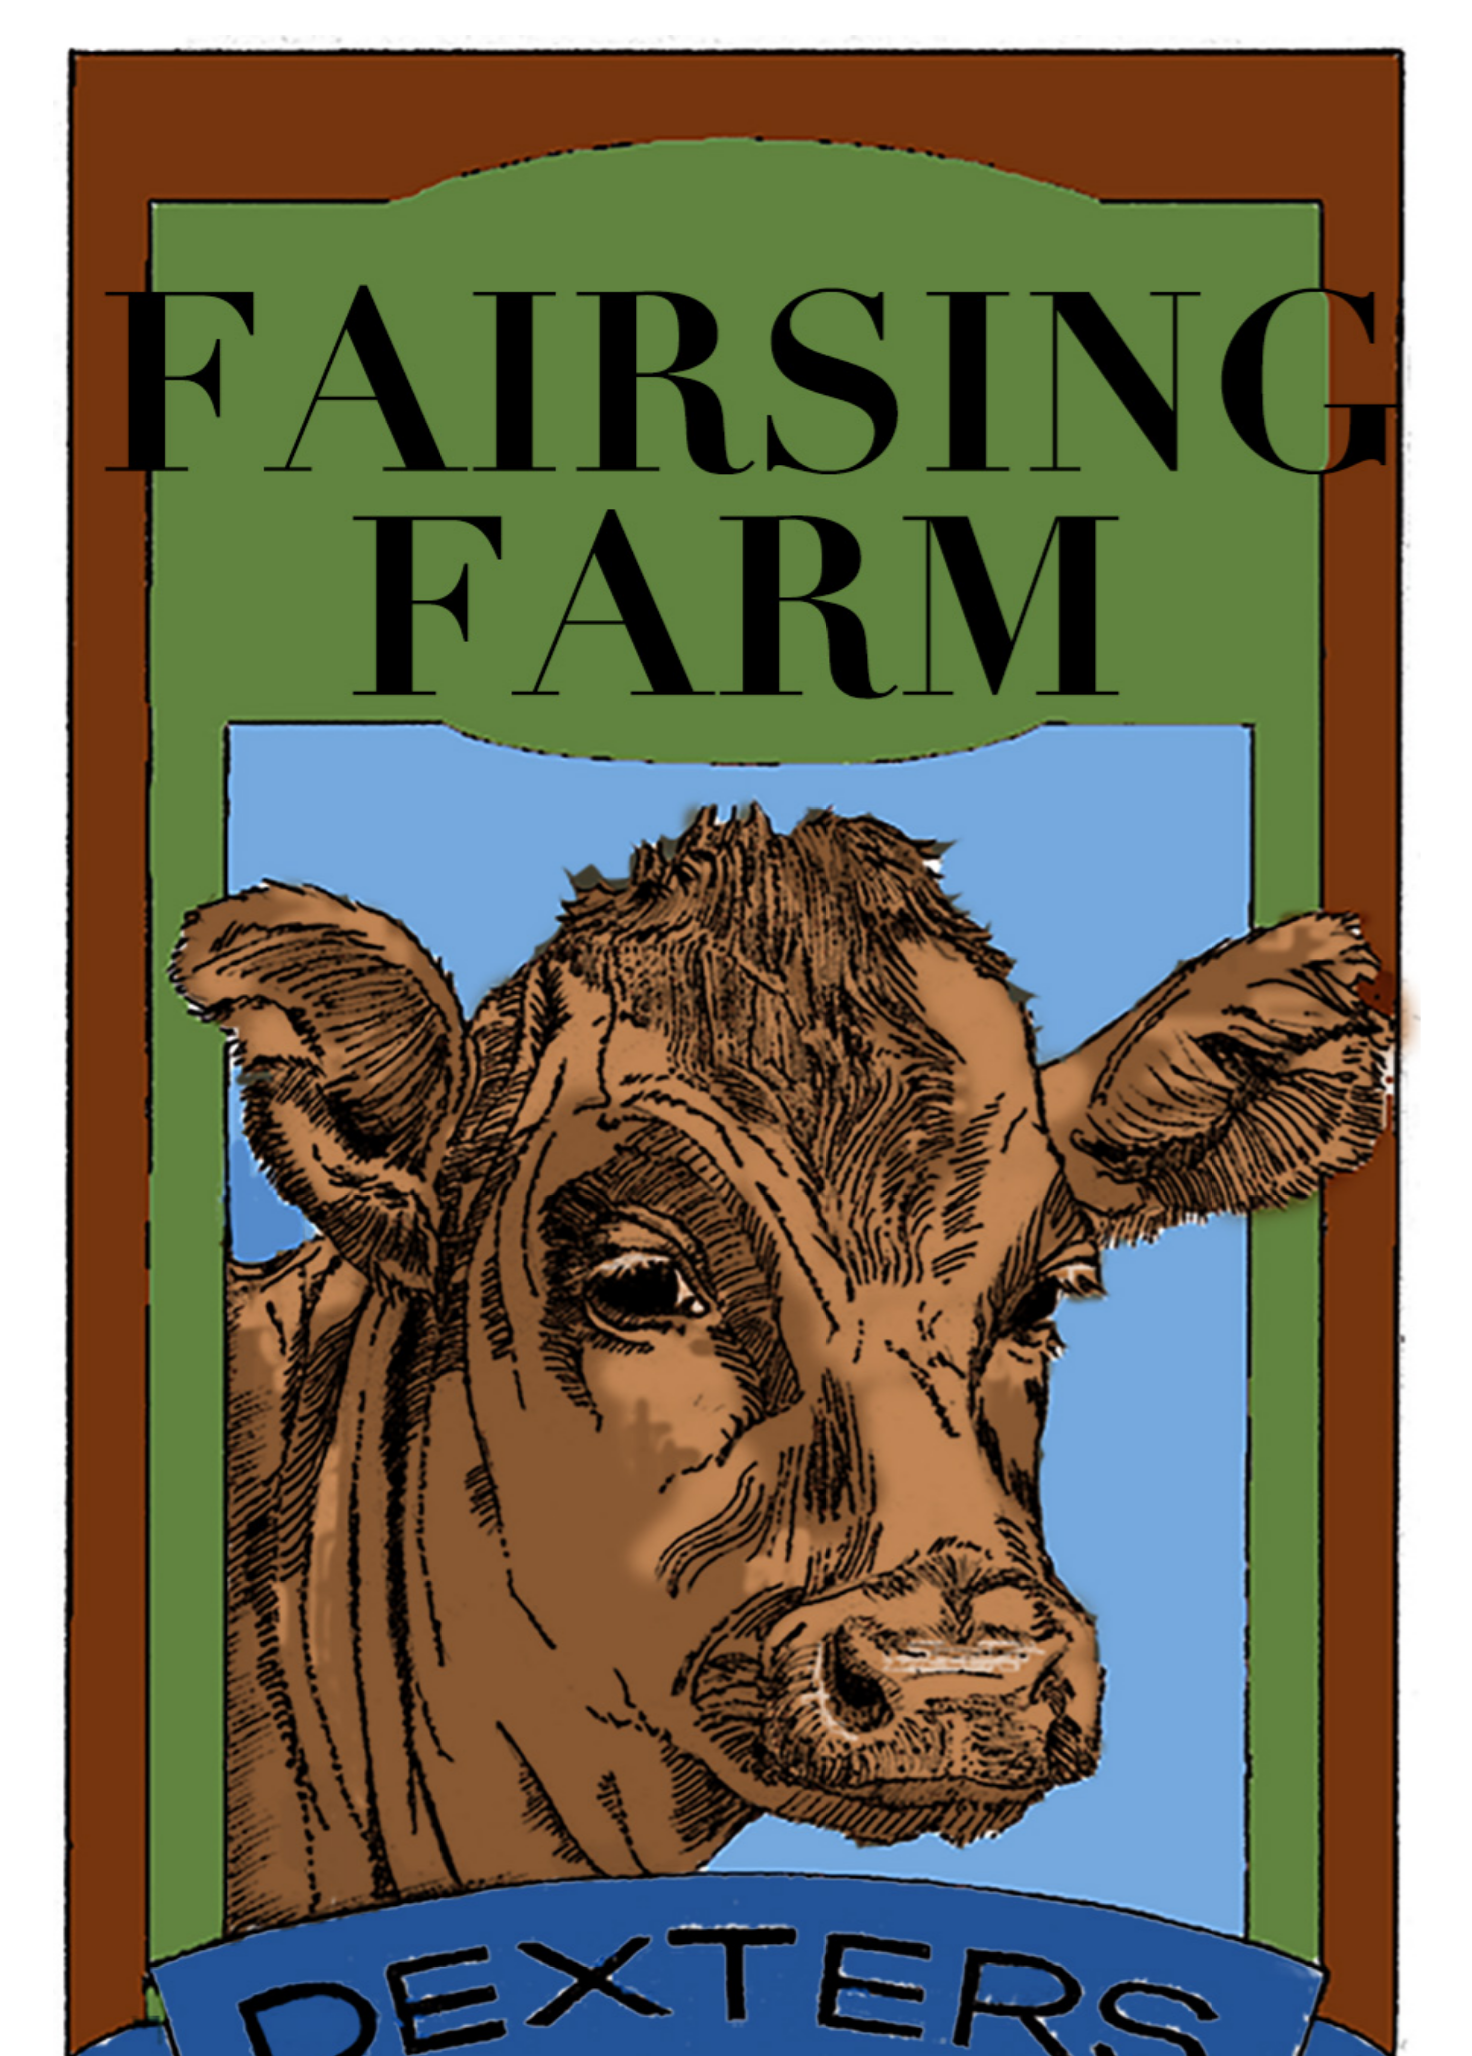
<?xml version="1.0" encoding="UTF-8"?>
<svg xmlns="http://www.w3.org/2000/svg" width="1472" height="2056">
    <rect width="100%" height="100%" fill="#FFFFFF"/>
    <image x="53" y="35" width="1368" height="2021" href="img_01.png"/>
</svg>
